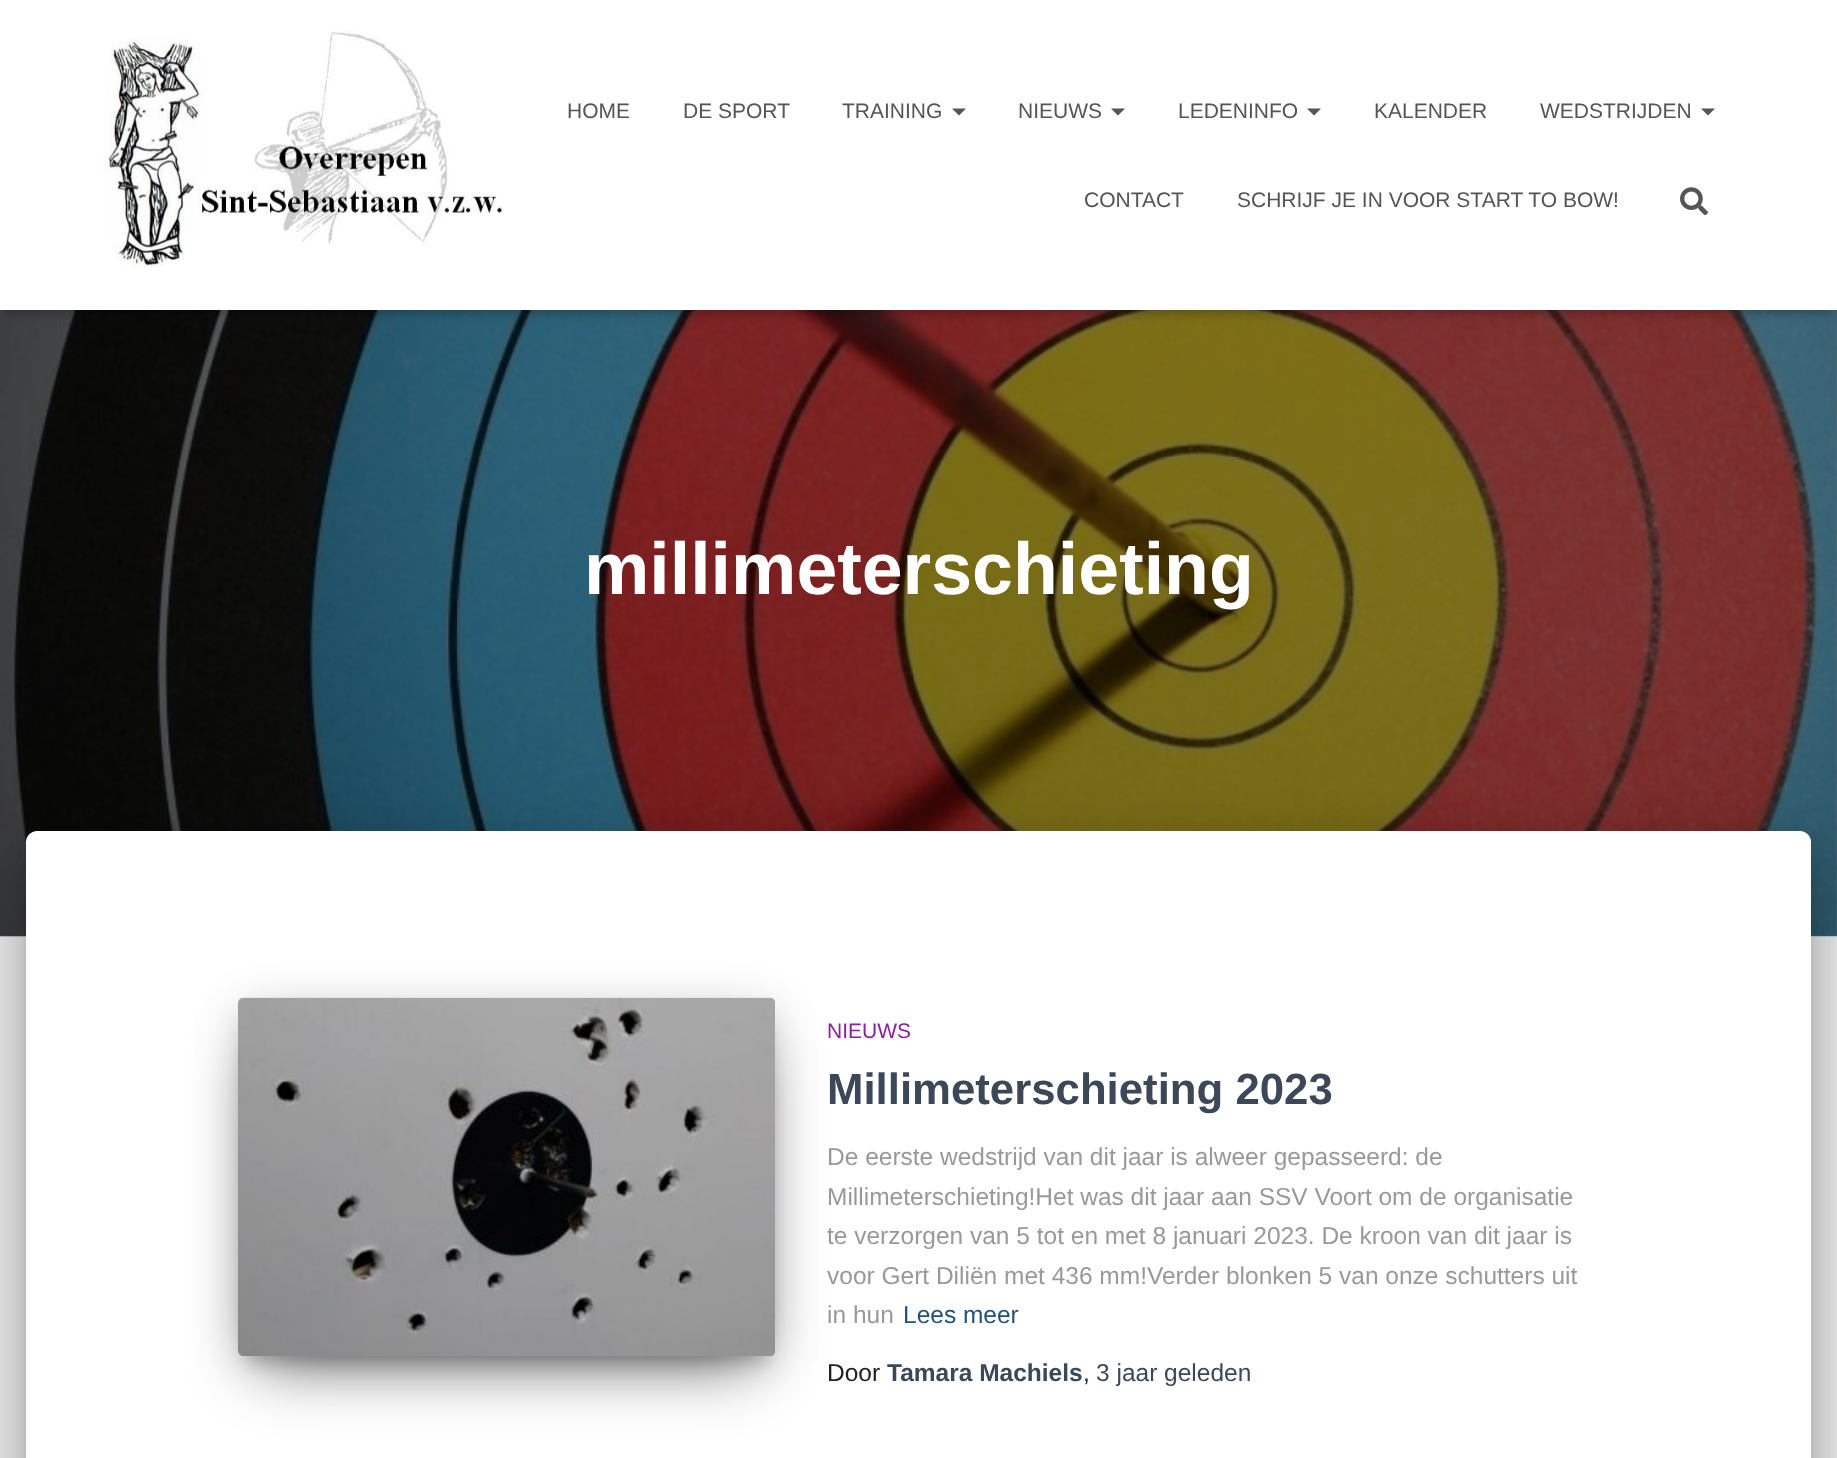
<?xml version="1.0" encoding="UTF-8"?>
<svg xmlns="http://www.w3.org/2000/svg" width="1837" height="1458">
    <defs>
        <filter id="blur1" x="-50%" y="-200%" width="200%" height="500%"><feGaussianBlur stdDeviation="4.5"/></filter>
        <filter id="blur2" x="-50%" y="-200%" width="200%" height="500%"><feGaussianBlur stdDeviation="9"/></filter>
        <filter id="blur3" x="-50%" y="-200%" width="200%" height="500%"><feGaussianBlur stdDeviation="26"/></filter>
        <filter id="blur4" x="-50%" y="-200%" width="200%" height="500%"><feGaussianBlur stdDeviation="21"/></filter>
        <filter id="blur5" x="-50%" y="-200%" width="200%" height="500%"><feGaussianBlur stdDeviation="22"/></filter>
        <filter id="blur6" x="-50%" y="-200%" width="200%" height="500%"><feGaussianBlur stdDeviation="33"/></filter>
    </defs>
    <rect width="100%" height="100%" fill="#E5E5E5"/>
    <rect x="0" y="310" width="1837" height="626" fill="#737373"/>
    <image x="0" y="310" width="1837" height="627" href="img_03.png"/>
    <rect x="4" y="11" width="1830" height="302" fill="#000000" fill-opacity="0.1" filter="url(#blur1)"/>
    <rect x="0" y="2" width="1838" height="310" fill="#000000" fill-opacity="0.12" filter="url(#blur2)"/>
    <rect x="11" y="12" width="1816" height="289" fill="#000000" fill-opacity="0.42" filter="url(#blur2)"/>
    <rect x="0" y="0" width="1837" height="310" fill="#FFFFFF"/>
    <image x="103" y="30" width="400" height="237" href="img_01.png"/>
    <text x="567" y="118" font-family="Liberation Sans" font-size="21" fill="#555555">HOME</text>
    <text x="683" y="118" font-family="Liberation Sans" font-size="21" fill="#555555">DE SPORT</text>
    <text x="842" y="118" font-family="Liberation Sans" font-size="21" fill="#555555">TRAINING</text>
    <path d="M 952 108.5 H 966 L 959 115.5 Z" fill="#555555"/>
    <text x="1018" y="118" font-family="Liberation Sans" font-size="21" fill="#555555">NIEUWS</text>
    <path d="M 1111 108.5 H 1125 L 1118 115.5 Z" fill="#555555"/>
    <text x="1178" y="118" font-family="Liberation Sans" font-size="21" fill="#555555">LEDENINFO</text>
    <path d="M 1307 108.5 H 1321 L 1314 115.5 Z" fill="#555555"/>
    <text x="1374" y="118" font-family="Liberation Sans" font-size="21" fill="#555555">KALENDER</text>
    <text x="1540" y="118" font-family="Liberation Sans" font-size="21" fill="#555555">WEDSTRIJDEN</text>
    <path d="M 1701 108.5 H 1715 L 1708 115.5 Z" fill="#555555"/>
    <text x="1084" y="207" font-family="Liberation Sans" font-size="21" fill="#555555">CONTACT</text>
    <text x="1237" y="207" font-family="Liberation Sans" font-size="21" fill="#555555">SCHRIJF JE IN VOOR START TO BOW!</text>
    <image x="1680" y="187" width="28" height="28" href="img_02.png"/>
    <text x="584" y="594" font-family="Liberation Sans" font-size="73.5" font-weight="700" fill="#FFFFFF">millimeterschieting</text>
    <rect x="35" y="854" width="1768" height="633" rx="2" fill="#000000" fill-opacity="0.2" filter="url(#blur2)"/>
    <rect x="18" y="833" width="1802" height="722" rx="19" fill="#000000" fill-opacity="0.12" filter="url(#blur3)"/>
    <rect x="23" y="856" width="1792" height="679" rx="14" fill="#000000" fill-opacity="0.14" filter="url(#blur4)"/>
    <path d="M 37 831 H 1800 C 1806 831 1811 836 1811 842 V 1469 H 26 V 842 C 26 836 31 831 37 831 Z" fill="#FFFFFF"/>
    <rect x="247" y="1020" width="520" height="342" fill="#000000" fill-opacity="0.2" filter="url(#blur2)"/>
    <rect x="238" y="1005" width="537" height="358" rx="5" fill="#000000" fill-opacity="0.12" filter="url(#blur5)"/>
    <rect x="259" y="1047" width="495" height="316" fill="#000000" fill-opacity="0.56" filter="url(#blur6)"/>
    <image x="238" y="997" width="537" height="359" href="img_04.png"/>
    <text x="827" y="1038" font-family="Liberation Sans" font-size="21" fill="#89229B">NIEUWS</text>
    <text x="827" y="1104" font-family="Liberation Sans" font-size="43.75" font-weight="700" fill="#3C4858">Millimeterschieting 2023</text>
    <text font-family="Liberation Sans" font-size="24.5" fill="#999999">
        <tspan x="827" y="1165">De eerste wedstrijd van dit jaar is alweer gepasseerd: de</tspan>
        <tspan x="827" y="1205">Millimeterschieting!Het was dit jaar aan SSV Voort om de organisatie</tspan>
        <tspan x="827" y="1244">te verzorgen van 5 tot en met 8 januari 2023. De kroon van dit jaar is</tspan>
        <tspan x="827" y="1284">voor Gert Diliën met 436 mm!Verder blonken 5 van onze schutters uit</tspan>
        <tspan x="827" y="1323">in hun</tspan>
    </text>
    <text x="903" y="1323" font-family="Liberation Sans" font-size="24.5" fill="#23527C">Lees meer</text>
    <text x="827" y="1381" font-family="Liberation Sans" font-size="24.5" fill="#212121">Door</text>
    <text x="887" y="1381" font-family="Liberation Sans" font-size="24.5" font-weight="700" fill="#3C4858">Tamara Machiels</text>
    <text x="1083" y="1381" font-family="Liberation Sans" font-size="24.5" fill="#212121">,</text>
    <text x="1096" y="1381" font-family="Liberation Sans" font-size="24.5" fill="#3C4858">3 jaar geleden</text>
</svg>
